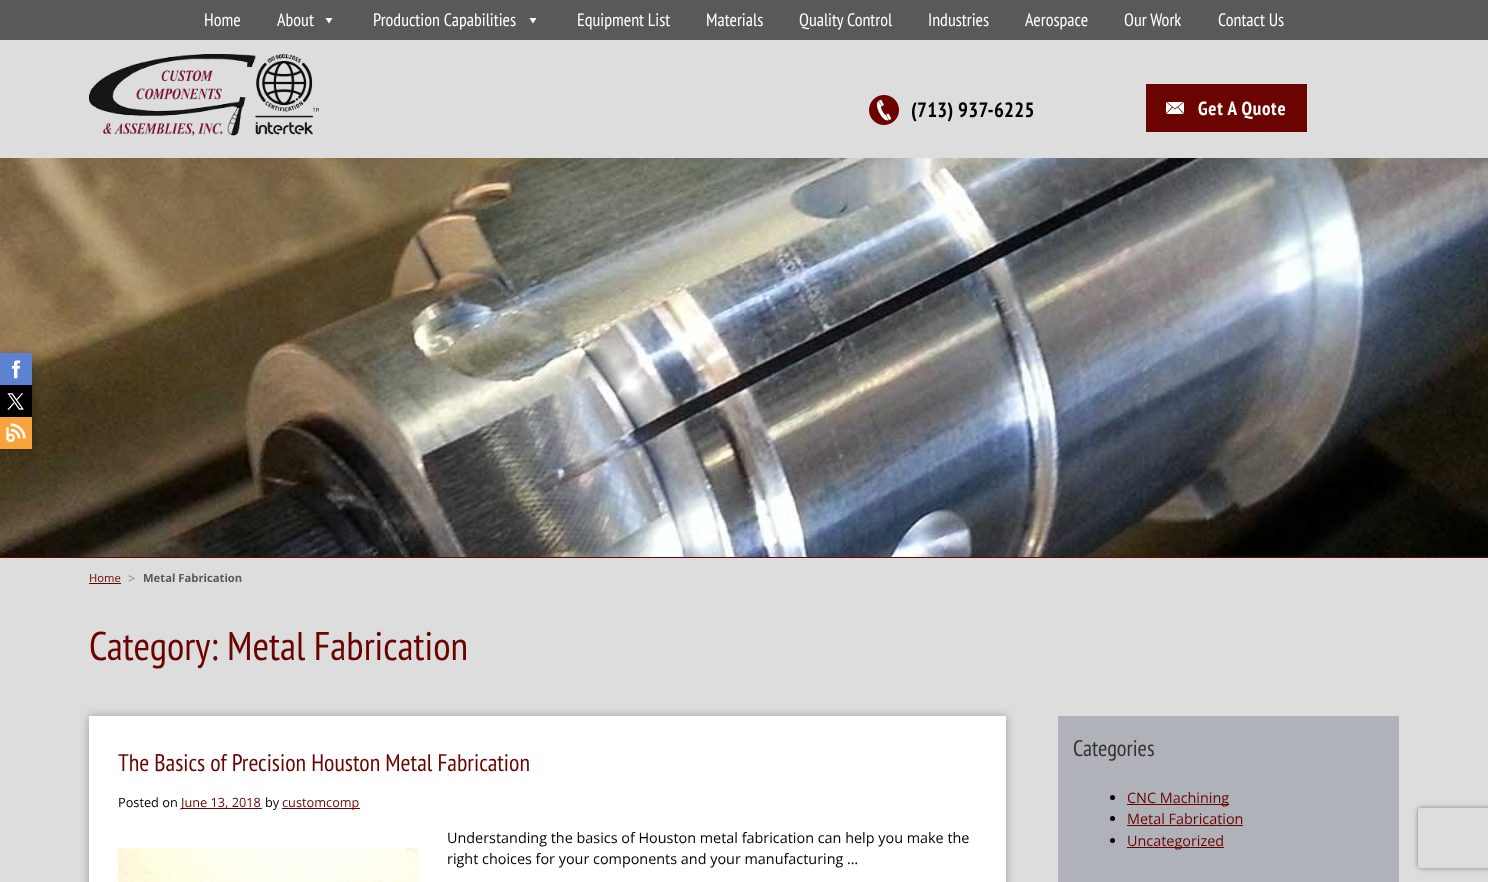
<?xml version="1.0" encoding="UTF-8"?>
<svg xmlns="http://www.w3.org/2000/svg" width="1488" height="882">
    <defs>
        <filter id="blur1" x="-50%" y="-200%" width="200%" height="500%"><feGaussianBlur stdDeviation="6"/></filter>
        <filter id="blur2" x="-50%" y="-200%" width="200%" height="500%"><feGaussianBlur stdDeviation="5"/></filter>
        <clipPath id="clip1"><path d="M 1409 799 H 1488 V 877 H 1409 Z M 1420 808 H 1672 C 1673 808 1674 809 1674 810 V 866 C 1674 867 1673 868 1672 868 H 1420 C 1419 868 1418 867 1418 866 V 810 C 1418 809 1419 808 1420 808 Z" clip-rule="evenodd"/></clipPath>
        <filter id="blur3" x="-50%" y="-200%" width="200%" height="500%"><feGaussianBlur stdDeviation="2.5"/></filter>
    </defs>
    <rect width="100%" height="100%" fill="#DDDDDD"/>
    <image x="0" y="158" width="1488" height="399" href="img_07.png"/>
    <rect x="0" y="353" width="32" height="96" fill="#000000" fill-opacity="0.3" filter="url(#blur1)"/>
    <image x="0" y="353" width="32" height="32" href="img_01.png"/>
    <image x="0" y="385" width="32" height="32" href="img_02.png"/>
    <image x="0" y="417" width="32" height="32" href="img_03.png"/>
    <rect x="0" y="0" width="1488" height="40" fill="#595959"/>
    <text x="204" y="26" font-family="PT Sans Narrow" font-size="18" fill="#FFFFFF">Home</text>
    <text x="277" y="26" font-family="PT Sans Narrow" font-size="18" fill="#FFFFFF">About</text>
    <path d="M 332.5 18 L 329 23.5 L 325.5 18 Z" fill="#FFFFFF"/>
    <text x="373" y="26" font-family="PT Sans Narrow" font-size="18" fill="#FFFFFF">Production Capabilities</text>
    <path d="M 536.5 18 L 533 23.5 L 529.5 18 Z" fill="#FFFFFF"/>
    <text x="577" y="26" font-family="PT Sans Narrow" font-size="18" fill="#FFFFFF">Equipment List</text>
    <text x="706" y="26" font-family="PT Sans Narrow" font-size="18" fill="#FFFFFF">Materials</text>
    <text x="799" y="26" font-family="PT Sans Narrow" font-size="18" fill="#FFFFFF">Quality Control</text>
    <text x="928" y="26" font-family="PT Sans Narrow" font-size="18" fill="#FFFFFF">Industries</text>
    <text x="1025" y="26" font-family="PT Sans Narrow" font-size="18" fill="#FFFFFF">Aerospace</text>
    <text x="1124" y="26" font-family="PT Sans Narrow" font-size="18" fill="#FFFFFF">Our Work</text>
    <text x="1218" y="26" font-family="PT Sans Narrow" font-size="18" fill="#FFFFFF">Contact Us</text>
    <image x="89" y="54" width="230" height="83" href="img_04.png"/>
    <image x="869" y="95" width="30" height="30" href="img_05.png"/>
    <text x="911" y="117" font-family="PT Sans Narrow" font-size="20.75" font-weight="700" letter-spacing="0.25" fill="#000000">(713) 937-6225</text>
    <rect x="1146" y="84" width="161" height="48" fill="#6B0401"/>
    <image x="1166" y="102" width="18" height="12" href="img_06.png"/>
    <text x="1198" y="115" font-family="PT Sans Narrow" font-size="19" font-weight="700" letter-spacing="0.75" fill="#FFFFFF">Get A Quote</text>
    <rect x="0" y="557" width="1488" height="1" fill="#6B0401"/>
    <text x="89" y="582" font-family="Open Sans" font-size="11.25" fill="#6B0401">Home</text>
    <rect x="89" y="583" width="32" height="1" fill="#6B0401"/>
    <text x="128" y="583" font-family="Open Sans" font-size="12.75" fill="#888888">&gt;</text>
    <text x="143" y="582" font-family="Open Sans" font-size="11.25" font-weight="700" fill="#595959">Metal Fabrication</text>
    <text x="89" y="660" font-family="PT Sans Narrow" font-size="40" fill="#6B0401">Category: Metal Fabrication</text>
    <rect x="89" y="716" width="917" height="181" fill="#000000" fill-opacity="0.3" filter="url(#blur2)"/>
    <rect x="89" y="716" width="917" height="166" fill="#FFFFFF"/>
    <text x="118" y="771" font-family="PT Sans Narrow" font-size="24" fill="#6B0401">The Basics of Precision Houston Metal Fabrication</text>
    <text x="118" y="807" font-family="Open Sans" font-size="12.75" fill="#000000">Posted on</text>
    <rect x="181" y="808" width="81" height="1" fill="#6B0401"/>
    <text x="181" y="807" font-family="Open Sans" font-size="12.75" fill="#6B0401">June 13, 2018</text>
    <text x="265" y="807" font-family="Open Sans" font-size="12.75" fill="#000000">by</text>
    <rect x="282" y="808" width="78" height="1" fill="#6B0401"/>
    <text x="282" y="807" font-family="Open Sans" font-size="12.75" fill="#6B0401">customcomp</text>
    <image x="118" y="848" width="300" height="34" href="img_08.png"/>
    <text font-family="Open Sans" font-size="14.4" fill="#000000">
        <tspan x="447" y="843">Understanding the basics of Houston metal fabrication can help you make the</tspan>
        <tspan x="447" y="864">right choices for your components and your manufacturing …</tspan>
    </text>
    <rect x="1058" y="716" width="341" height="166" fill="#AFB2B8"/>
    <text x="1073" y="756" font-family="PT Sans Narrow" font-size="22.5" fill="#333333">Categories</text>
    <circle cx="1112.5" cy="797.5" r="2.5" fill="#000000"/>
    <rect x="1127" y="804" width="102" height="1" fill="#6B0401"/>
    <text x="1127" y="803" font-family="Open Sans" font-size="14.4" fill="#6B0401">CNC Machining</text>
    <circle cx="1112.5" cy="818.5" r="2.5" fill="#000000"/>
    <text x="1127" y="824" font-family="Open Sans" font-size="14.4" fill="#6B0401">Metal Fabrication</text>
    <rect x="1127" y="825" width="116" height="1" fill="#6B0401"/>
    <circle cx="1112.5" cy="840.5" r="2.5" fill="#000000"/>
    <rect x="1127" y="847" width="97" height="1" fill="#6B0401"/>
    <text x="1127" y="846" font-family="Open Sans" font-size="14.4" fill="#6B0401">Uncategorized</text>
    <g clip-path="url(#clip1)">
        <rect x="1418" y="808" width="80" height="60" rx="2" fill="#808080" filter="url(#blur3)"/>
    </g>
</svg>
